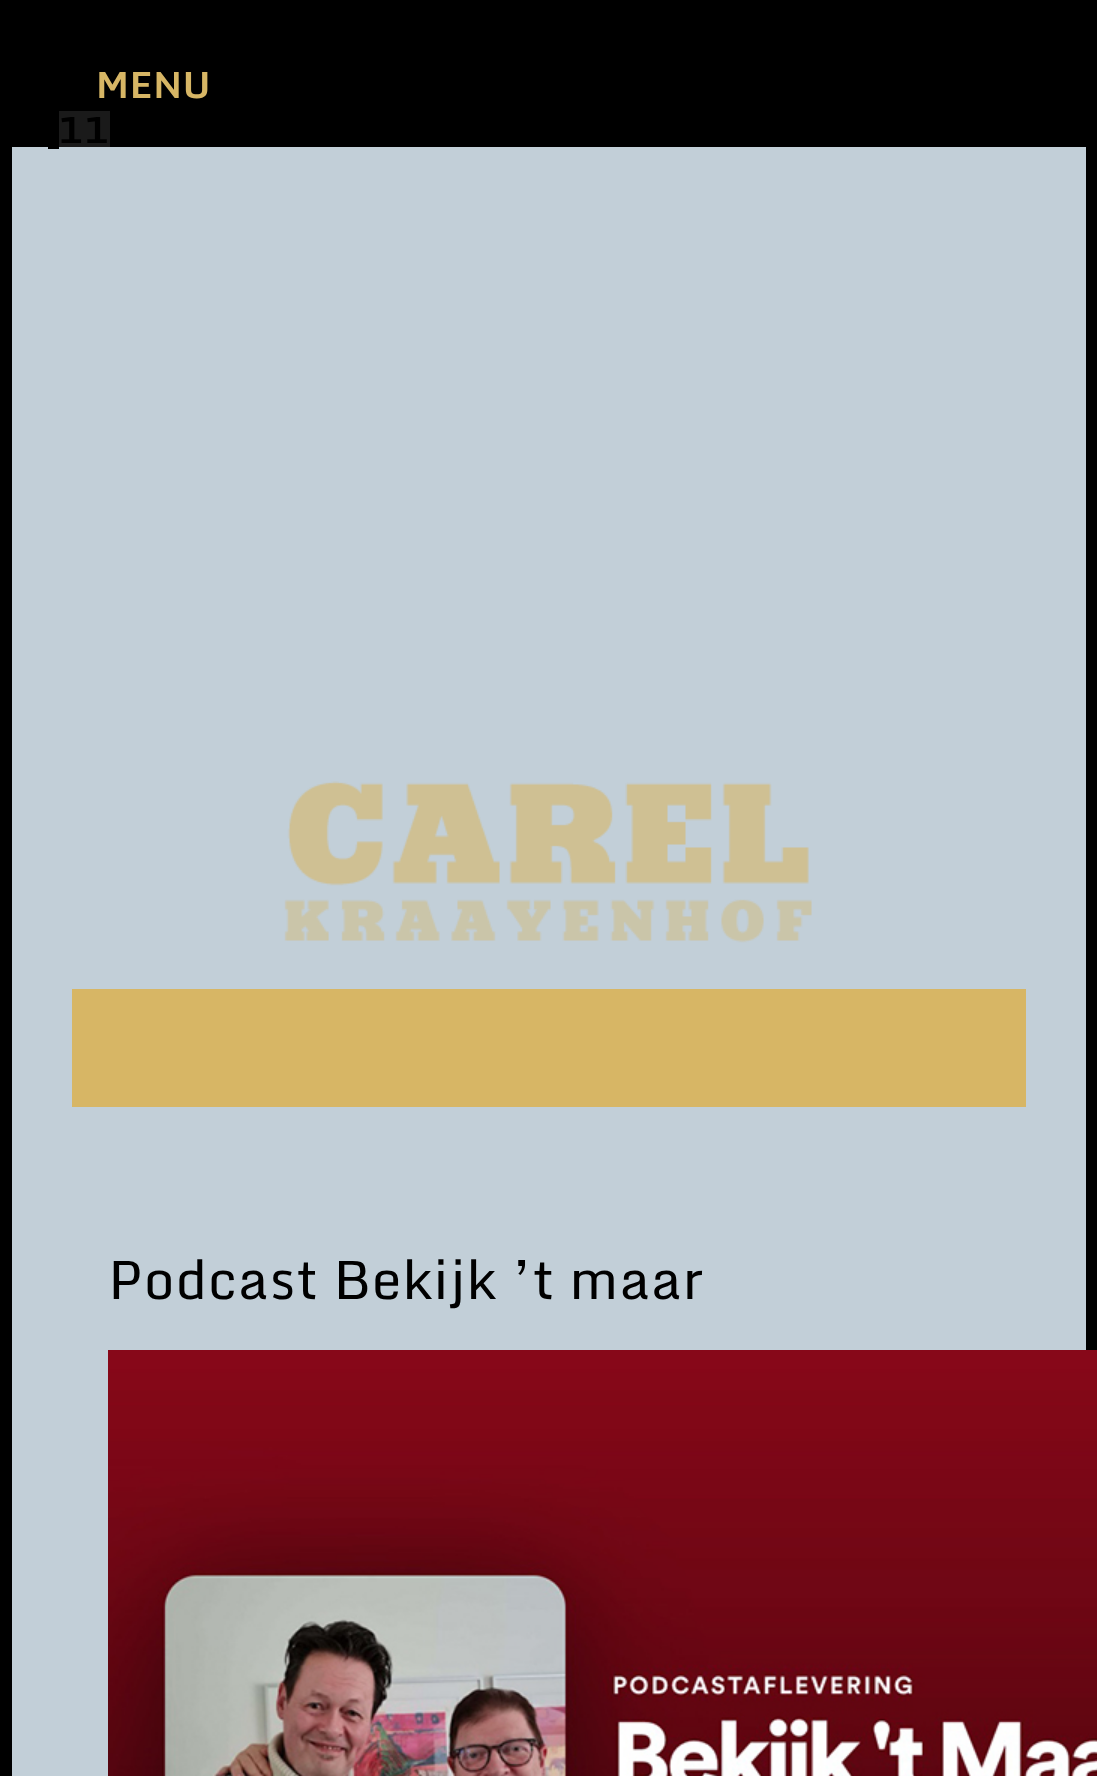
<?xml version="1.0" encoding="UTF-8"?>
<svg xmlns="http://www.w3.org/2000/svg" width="1097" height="1776">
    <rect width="100%" height="100%" fill="#000000"/>
    <text x="96" y="98" font-family="Monda" font-size="36" font-weight="700" letter-spacing="0.75" fill="#D7B665">MENU</text>
    <rect x="59" y="111" width="51" height="36" fill="#1A1A1A"/>
    <text x="58" y="143" font-family="Monda" font-size="36" font-weight="700" letter-spacing="0.75" fill="#000000">11</text>
    <rect x="12" y="147" width="1074" height="1629" fill="#C2CFD8"/>
    <rect x="48" y="147" width="11" height="2" fill="#000000"/>
    <image x="284" y="781" width="528" height="162" href="img_01.png"/>
    <rect x="72" y="989" width="954" height="118" fill="#D7B665"/>
    <text x="108" y="1299" font-family="Monda" font-size="54" letter-spacing="0.75" fill="#000000">Podcast Bekijk ’t maar</text>
    <image x="108" y="1350" width="989" height="426" href="img_02.png"/>
</svg>
